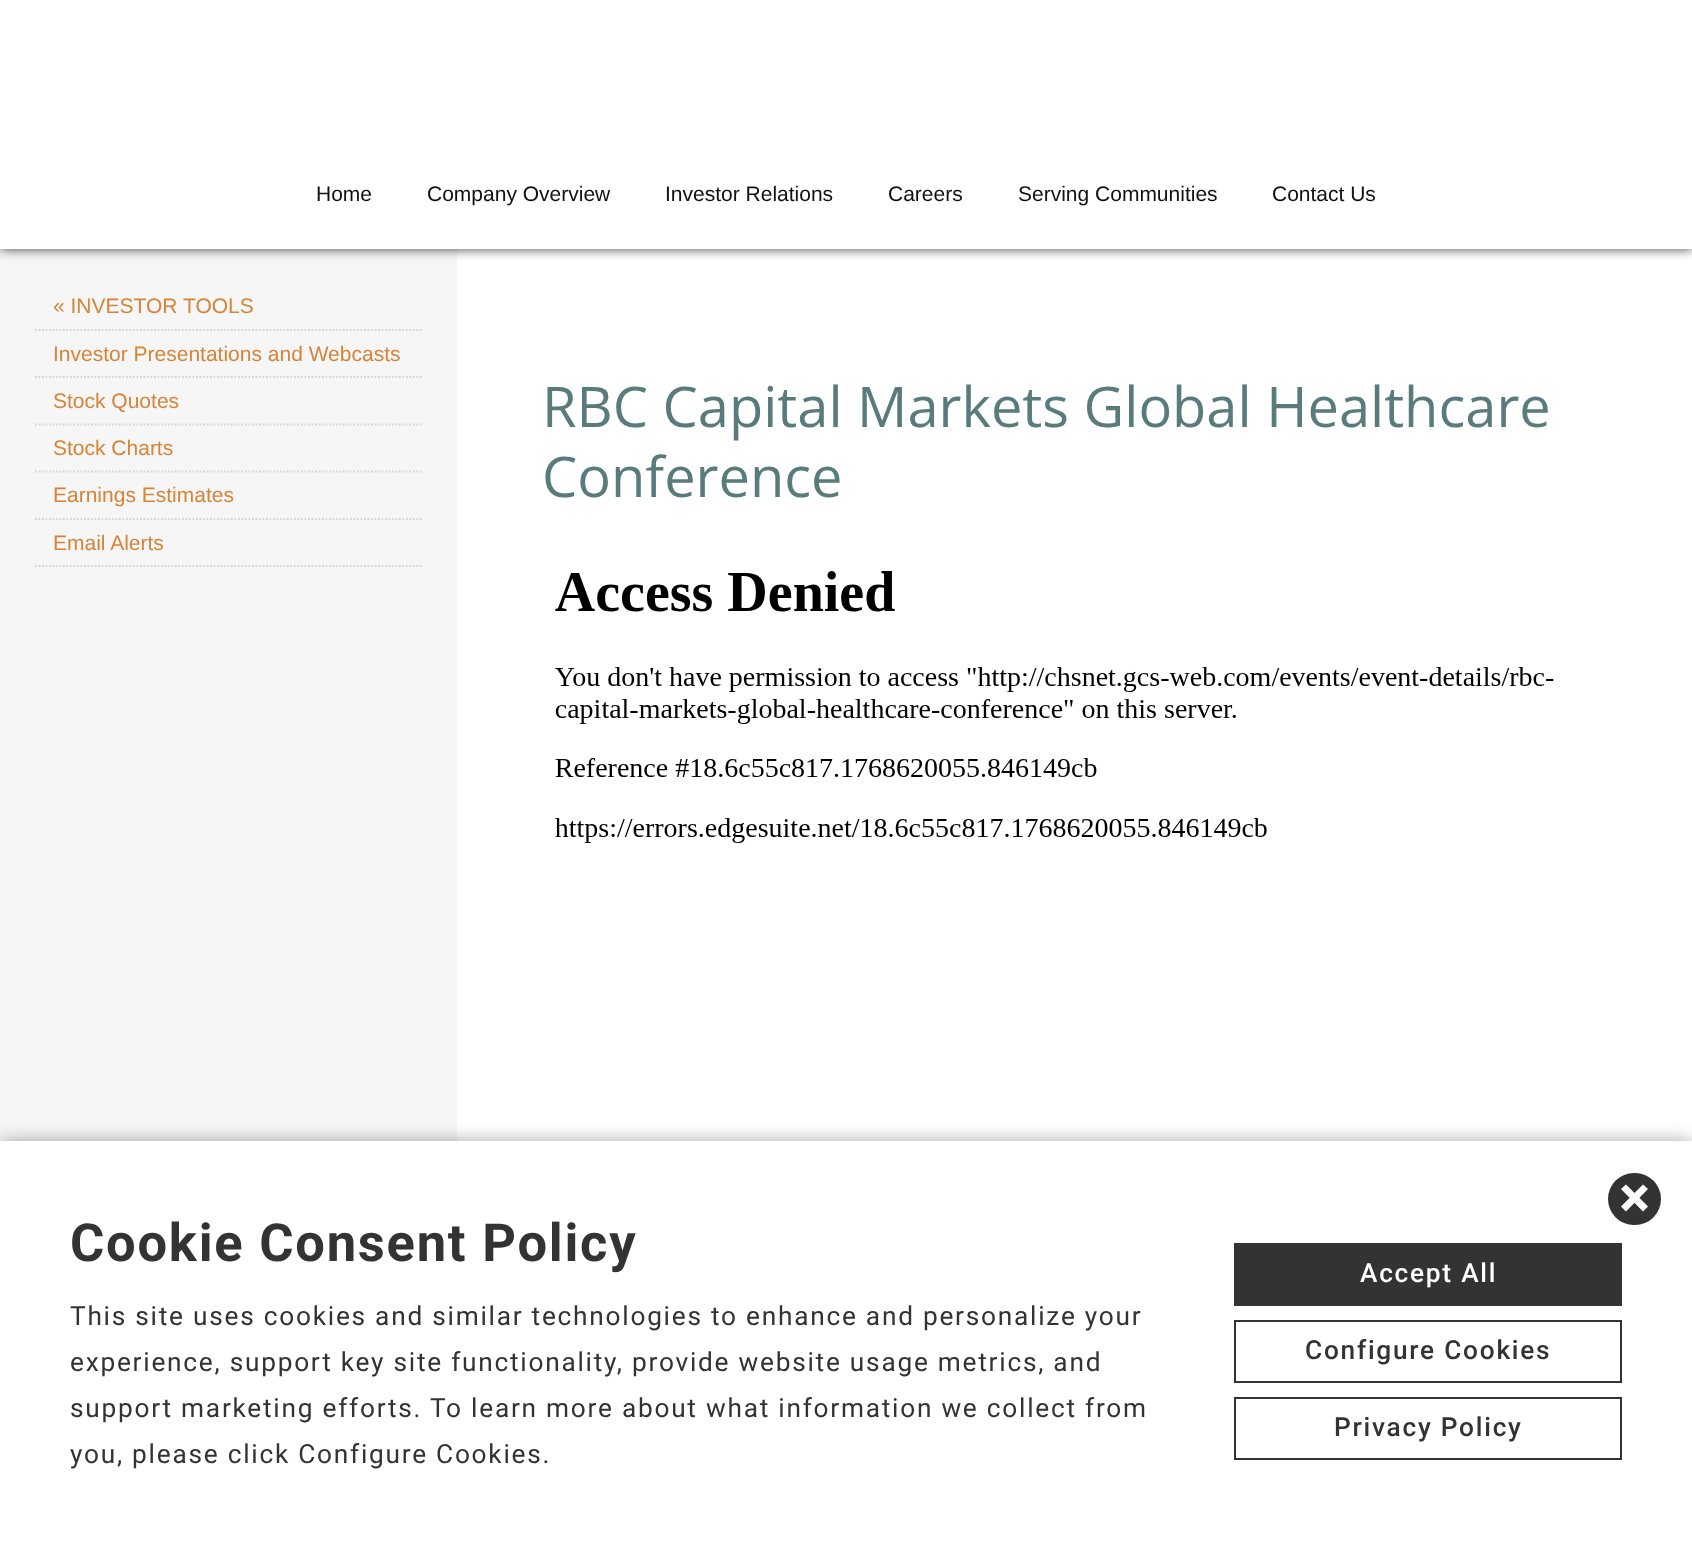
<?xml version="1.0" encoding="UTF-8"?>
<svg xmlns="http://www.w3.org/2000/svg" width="1692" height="1546">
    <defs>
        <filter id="blur1" x="-50%" y="-200%" width="200%" height="500%"><feGaussianBlur stdDeviation="6"/></filter>
        <filter id="blur2" x="-50%" y="-200%" width="200%" height="500%"><feGaussianBlur stdDeviation="9"/></filter>
    </defs>
    <rect width="100%" height="100%" fill="#FFFFFF"/>
    <rect x="0" y="249" width="457" height="892" fill="#F6F6F6"/>
    <rect x="0" y="0" width="1692" height="249" fill="#000000" fill-opacity="0.75" filter="url(#blur1)"/>
    <rect x="0" y="0" width="1692" height="249" fill="#FFFFFF"/>
    <text x="316" y="201" font-family="Liberation Sans" font-size="21" fill="#111111">Home</text>
    <text x="427" y="201" font-family="Liberation Sans" font-size="21" fill="#111111">Company Overview</text>
    <text x="665" y="201" font-family="Liberation Sans" font-size="21" fill="#111111">Investor Relations</text>
    <text x="888" y="201" font-family="Liberation Sans" font-size="21" fill="#111111">Careers</text>
    <text x="1018" y="201" font-family="Liberation Sans" font-size="21" fill="#111111">Serving Communities</text>
    <text x="1272" y="201" font-family="Liberation Sans" font-size="21" fill="#111111">Contact Us</text>
    <path d="M 35 330 H 422" fill="none" stroke="#D5D5D5" stroke-width="1.8" stroke-dasharray="1.75 1.75"/>
    <text x="53" y="313" font-family="Liberation Sans" font-size="21" fill="#D68438">« INVESTOR TOOLS</text>
    <path d="M 35 377 H 422" fill="none" stroke="#D5D5D5" stroke-width="1.8" stroke-dasharray="1.75 1.75"/>
    <text x="53" y="361" font-family="Liberation Sans" font-size="21" fill="#D68438">Investor Presentations and Webcasts</text>
    <path d="M 35 424.5 H 422" fill="none" stroke="#D5D5D5" stroke-width="1.8" stroke-dasharray="1.75 1.75"/>
    <text x="53" y="408" font-family="Liberation Sans" font-size="21" fill="#D68438">Stock Quotes</text>
    <path d="M 35 471.5 H 422" fill="none" stroke="#D5D5D5" stroke-width="1.8" stroke-dasharray="1.75 1.75"/>
    <text x="53" y="455" font-family="Liberation Sans" font-size="21" fill="#D68438">Stock Charts</text>
    <path d="M 35 519 H 422" fill="none" stroke="#D5D5D5" stroke-width="1.8" stroke-dasharray="1.75 1.75"/>
    <text x="53" y="502" font-family="Liberation Sans" font-size="21" fill="#D68438">Earnings Estimates</text>
    <path d="M 35 566 H 422" fill="none" stroke="#D5D5D5" stroke-width="1.8" stroke-dasharray="1.75 1.75"/>
    <text x="53" y="550" font-family="Liberation Sans" font-size="21" fill="#D68438">Email Alerts</text>
    <text font-family="Open Sans" font-size="56" fill="#597B7C">
        <tspan x="542" y="427">RBC Capital Markets Global Healthcare</tspan>
        <tspan x="542" y="497">Conference</tspan>
    </text>
    <image x="555" y="571" width="999" height="272" href="img_01.png"/>
    <rect x="0" y="1141" width="1692" height="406" fill="#000000" fill-opacity="0.35" filter="url(#blur2)"/>
    <rect x="0" y="1141" width="1692" height="405" fill="#FFFFFF"/>
    <rect x="1608" y="1173" width="53" height="52" rx="26" fill="#333333"/>
    <path d="M 1621 1189 L 1626 1184.5 L 1648 1206.5 L 1643 1211.5 Z" fill="#FFFFFF"/>
    <path d="M 1643 1184.5 L 1648 1189 L 1626 1211.5 L 1621 1206.5 Z" fill="#FFFFFF"/>
    <text x="70" y="1261" font-family="Roboto" font-size="52.5" font-weight="700" letter-spacing="1.75" fill="#333333">Cookie Consent Policy</text>
    <text font-family="Roboto" font-size="26.25" letter-spacing="1.75" fill="#333333">
        <tspan x="70" y="1325">This site uses cookies and similar technologies to enhance and personalize your</tspan>
        <tspan x="70" y="1371">experience, support key site functionality, provide website usage metrics, and</tspan>
        <tspan x="70" y="1417">support marketing efforts. To learn more about what information we collect from</tspan>
        <tspan x="70" y="1463">you, please click Configure Cookies.</tspan>
    </text>
    <rect x="1234" y="1243" width="388" height="63" fill="#333333"/>
    <text x="1360" y="1282" font-family="Roboto" font-size="26.25" font-weight="500" letter-spacing="1.75" fill="#FFFFFF">Accept All</text>
    <rect x="1235" y="1321" width="386" height="61" fill="none" stroke="#333333" stroke-width="2"/>
    <text x="1305" y="1359" font-family="Roboto" font-size="26.25" font-weight="500" letter-spacing="1.75" fill="#333333">Configure Cookies</text>
    <rect x="1235" y="1398" width="386" height="61" fill="none" stroke="#333333" stroke-width="2"/>
    <text x="1334" y="1436" font-family="Roboto" font-size="26.25" font-weight="500" letter-spacing="1.75" fill="#333333">Privacy Policy</text>
</svg>
